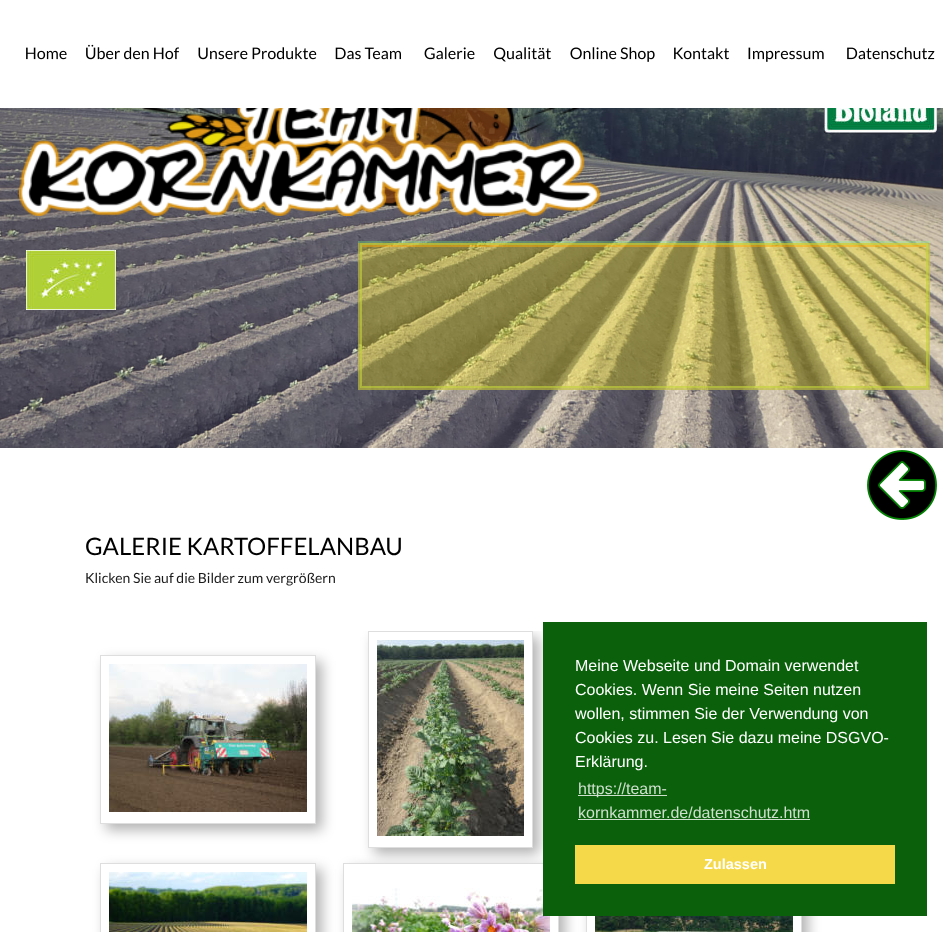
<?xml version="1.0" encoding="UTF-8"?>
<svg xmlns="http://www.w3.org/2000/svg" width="943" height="932">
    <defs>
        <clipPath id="clip1"><path d="M 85 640 H 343 V 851 H 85 Z M 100 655 H 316 V 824 H 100 Z" clip-rule="evenodd"/></clipPath>
        <filter id="blur1" x="-50%" y="-200%" width="200%" height="500%"><feGaussianBlur stdDeviation="6.5"/></filter>
        <clipPath id="clip2"><rect x="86" y="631" width="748" height="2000"/></clipPath>
        <clipPath id="clip3"><path d="M 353 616 H 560 V 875 H 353 Z M 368 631 H 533 V 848 H 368 Z" clip-rule="evenodd"/></clipPath>
        <clipPath id="clip4"><path d="M 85 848 H 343 V 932 H 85 Z M 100 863 H 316 V 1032 H 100 Z" clip-rule="evenodd"/></clipPath>
        <clipPath id="clip5"><path d="M 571 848 H 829 V 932 H 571 Z M 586 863 H 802 V 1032 H 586 Z" clip-rule="evenodd"/></clipPath>
    </defs>
    <rect width="100%" height="100%" fill="#FFFFFF"/>
    <image x="0" y="108" width="943" height="340" href="img_01.png"/>
    <image x="26" y="47" width="41" height="13" href="img_02.png"/>
    <image x="86" y="44" width="93" height="16" href="img_03.png"/>
    <image x="198" y="47" width="119" height="13" href="img_04.png"/>
    <image x="335" y="47" width="66" height="13" href="img_05.png"/>
    <image x="424" y="47" width="51" height="13" href="img_06.png"/>
    <image x="494" y="47" width="57" height="15" href="img_07.png"/>
    <image x="570" y="47" width="85" height="15" href="img_08.png"/>
    <image x="674" y="47" width="55" height="13" href="img_09.png"/>
    <image x="748" y="47" width="76" height="15" href="img_10.png"/>
    <image x="847" y="47" width="88" height="13" href="img_11.png"/>
    <image x="19" y="108" width="582" height="108" href="img_12.png"/>
    <image x="824" y="108" width="113" height="26" href="img_13.png"/>
    <image x="358" y="243" width="572" height="147" href="img_16.png"/>
    <image x="358" y="241" width="572" height="149" href="img_14.png"/>
    <image x="26" y="250" width="90" height="60" href="img_15.png"/>
    <image x="867" y="450" width="70" height="70" href="img_17.png"/>
    <text x="85" y="555" font-family="Lato" font-size="24" fill="#000000">GALERIE KARTOFFELANBAU</text>
    <text x="85" y="583" font-family="Lato" font-size="14" fill="#1B1B1B">Klicken Sie auf die Bilder zum vergrößern</text>
    <g clip-path="url(#clip1)">
        <rect x="106" y="661" width="216" height="169" fill="#000000" fill-opacity="0.3" filter="url(#blur1)"/>
    </g>
    <rect x="100.5" y="655.5" width="215" height="168" fill="none" stroke="#DEDEDE"/>
    <image x="109" y="664" width="198" height="148" href="img_18.png"/>
    <g clip-path="url(#clip2)">
        <g clip-path="url(#clip3)">
            <rect x="374" y="637" width="165" height="217" fill="#000000" fill-opacity="0.3" filter="url(#blur1)"/>
        </g>
    </g>
    <rect x="368.5" y="631.5" width="164" height="216" fill="none" stroke="#DEDEDE"/>
    <image x="377" y="640" width="147" height="196" href="img_19.png"/>
    <g clip-path="url(#clip4)">
        <rect x="106" y="869" width="216" height="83" fill="#000000" fill-opacity="0.3" filter="url(#blur1)"/>
    </g>
    <rect x="100.5" y="863.5" width="215" height="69" fill="none" stroke="#DEDEDE"/>
    <image x="109" y="872" width="198" height="60" href="img_20.png"/>
    <rect x="349" y="869" width="216" height="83" fill="#000000" fill-opacity="0.3" filter="url(#blur1)"/>
    <rect x="343.5" y="863.5" width="215" height="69" fill="#FFFFFF" stroke="#DEDEDE"/>
    <image x="352" y="888" width="198" height="44" href="img_21.png"/>
    <g clip-path="url(#clip5)">
        <rect x="592" y="869" width="216" height="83" fill="#000000" fill-opacity="0.3" filter="url(#blur1)"/>
    </g>
    <rect x="586.5" y="863.5" width="215" height="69" fill="none" stroke="#DEDEDE"/>
    <image x="595" y="916" width="198" height="16" href="img_22.png"/>
    <rect x="543" y="622" width="384" height="294" fill="#0B610B"/>
    <text font-family="Liberation Sans" font-size="16" fill="#FFFFFF">
        <tspan x="575" y="671">Meine Webseite und Domain verwendet</tspan>
        <tspan x="575" y="695">Cookies. Wenn Sie meine Seiten nutzen</tspan>
        <tspan x="575" y="719">wollen, stimmen Sie der Verwendung von</tspan>
        <tspan x="575" y="743">Cookies zu. Lesen Sie dazu meine DSGVO-</tspan>
        <tspan x="575" y="767">Erklärung.</tspan>
    </text>
    <rect x="578" y="795" width="89" height="1" fill="#CEDFCE"/>
    <text font-family="Liberation Sans" font-size="16" fill="#CEDFCE">
        <tspan x="578" y="794">https://team-</tspan>
        <tspan x="578" y="818">kornkammer.de/datenschutz.htm</tspan>
    </text>
    <rect x="578" y="819" width="232" height="1" fill="#CEDFCE"/>
    <rect x="575" y="845" width="320" height="39" fill="#F5D948"/>
    <text x="704" y="869" font-family="Liberation Sans" font-size="14.5" font-weight="700" fill="#FFFFFF">Zulassen</text>
</svg>
